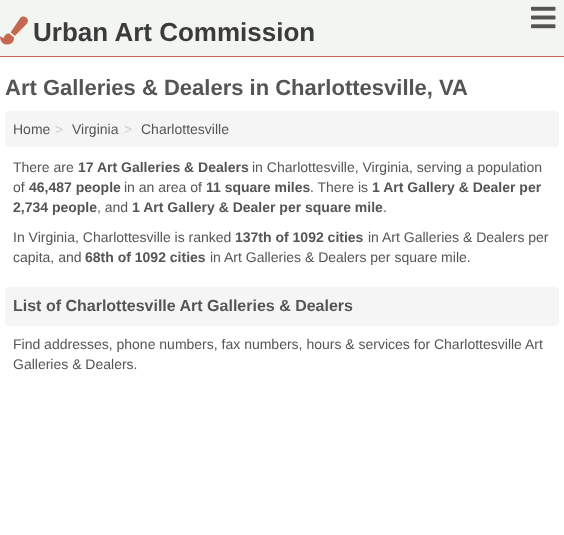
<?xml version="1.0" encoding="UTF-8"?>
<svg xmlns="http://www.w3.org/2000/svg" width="564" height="535">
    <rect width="100%" height="100%" fill="#FFFFFF"/>
    <rect x="0" y="0" width="564" height="56" fill="#F2F5F0"/>
    <rect x="0" y="56" width="564" height="1" fill="#C56751"/>
    <image x="531" y="6" width="25" height="23" href="img_01.png"/>
    <image x="0" y="16" width="28" height="29" href="img_02.png"/>
    <text x="33" y="41" font-family="Liberation Sans" font-size="26" font-weight="700" fill="#3A3B3A">Urban Art Commission</text>
    <text x="5" y="95" font-family="Liberation Sans" font-size="22" font-weight="700" fill="#555555">Art Galleries &amp; Dealers in Charlottesville, VA</text>
    <rect x="5" y="111" width="554" height="36" rx="4" fill="#F5F5F5"/>
    <text x="13" y="134" font-family="Liberation Sans" font-size="14" fill="#555555">Home</text>
    <text x="55" y="134" font-family="Liberation Sans" font-size="14" fill="#CCCCCC">&gt;</text>
    <text x="72" y="134" font-family="Liberation Sans" font-size="14" fill="#555555">Virginia</text>
    <text x="124" y="134" font-family="Liberation Sans" font-size="14" fill="#CCCCCC">&gt;</text>
    <text x="141" y="134" font-family="Liberation Sans" font-size="14" fill="#555555">Charlottesville</text>
    <text x="13" y="172" font-family="Liberation Sans" font-size="14" fill="#555555">There are</text>
    <text x="78" y="172" font-family="Liberation Sans" font-size="14" font-weight="700" fill="#555555">17 Art Galleries &amp; Dealers</text>
    <text x="252" y="172" font-family="Liberation Sans" font-size="14" fill="#555555">in Charlottesville, Virginia, serving a population</text>
    <text x="13" y="192" font-family="Liberation Sans" font-size="14" fill="#555555">of</text>
    <text x="29" y="192" font-family="Liberation Sans" font-size="14" font-weight="700" fill="#555555">46,487 people</text>
    <text x="124" y="192" font-family="Liberation Sans" font-size="14" fill="#555555">in an area of</text>
    <text x="206" y="192" font-family="Liberation Sans" font-size="14" font-weight="700" fill="#555555">11 square miles</text>
    <text x="310" y="192" font-family="Liberation Sans" font-size="14" fill="#555555">. There is</text>
    <text x="372" y="192" font-family="Liberation Sans" font-size="14" font-weight="700" fill="#555555">1 Art Gallery &amp; Dealer per</text>
    <text x="13" y="212" font-family="Liberation Sans" font-size="14" font-weight="700" fill="#555555">2,734 people</text>
    <text x="97" y="212" font-family="Liberation Sans" font-size="14" fill="#555555">, and</text>
    <text x="132" y="212" font-family="Liberation Sans" font-size="14" font-weight="700" fill="#555555">1 Art Gallery &amp; Dealer per square mile</text>
    <text x="383" y="212" font-family="Liberation Sans" font-size="14" fill="#555555">.</text>
    <text x="13" y="242" font-family="Liberation Sans" font-size="14" fill="#555555">In Virginia, Charlottesville is ranked</text>
    <text x="235" y="242" font-family="Liberation Sans" font-size="14" font-weight="700" fill="#555555">137th of 1092 cities</text>
    <text x="368" y="242" font-family="Liberation Sans" font-size="14" fill="#555555">in Art Galleries &amp; Dealers per</text>
    <text x="13" y="262" font-family="Liberation Sans" font-size="14" fill="#555555">capita, and</text>
    <text x="85" y="262" font-family="Liberation Sans" font-size="14" font-weight="700" fill="#555555">68th of 1092 cities</text>
    <text x="210" y="262" font-family="Liberation Sans" font-size="14" fill="#555555">in Art Galleries &amp; Dealers per square mile.</text>
    <rect x="5" y="287" width="554" height="39" rx="4" fill="#F5F5F5"/>
    <text x="13" y="311" font-family="Liberation Sans" font-size="16" font-weight="700" fill="#555555">List of Charlottesville Art Galleries &amp; Dealers</text>
    <text font-family="Liberation Sans" font-size="14" fill="#555555">
        <tspan x="13" y="349">Find addresses, phone numbers, fax numbers, hours &amp; services for Charlottesville Art</tspan>
        <tspan x="13" y="369">Galleries &amp; Dealers.</tspan>
    </text>
</svg>
